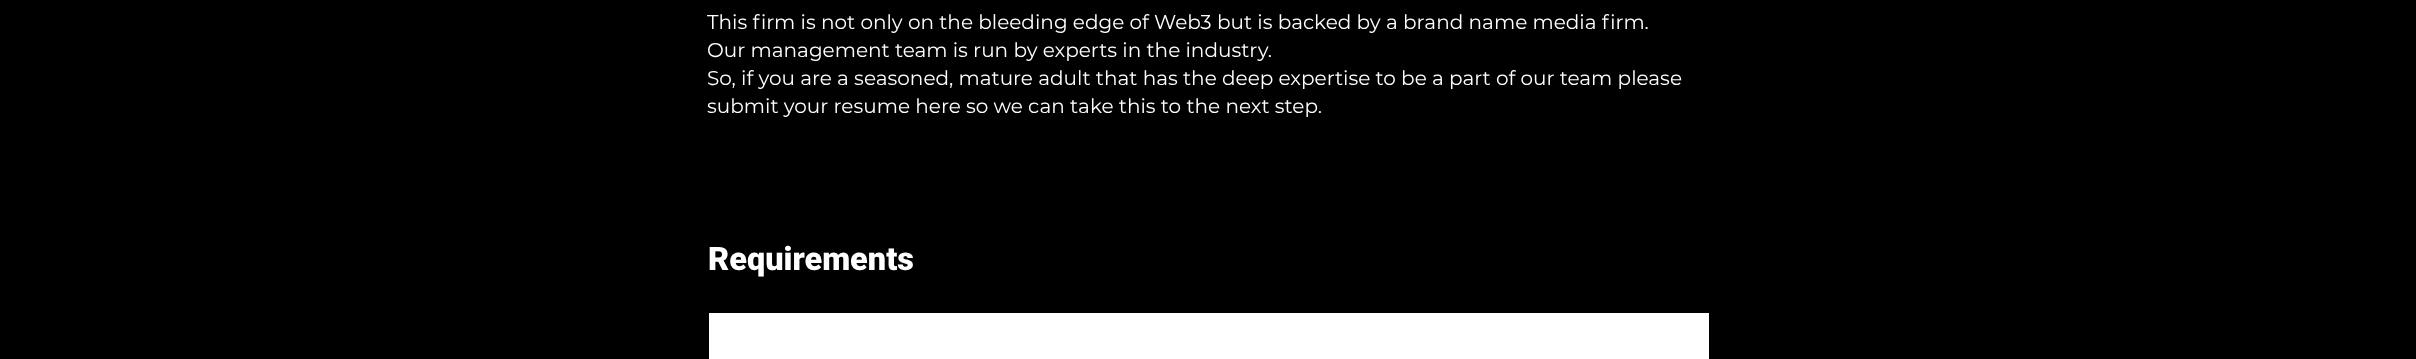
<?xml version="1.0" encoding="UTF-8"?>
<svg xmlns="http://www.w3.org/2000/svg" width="2416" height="359">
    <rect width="100%" height="100%" fill="#000000"/>
    <text font-family="Montserrat" font-size="20" fill="#FFFFFF">
        <tspan x="707" y="29">This firm is not only on the bleeding edge of Web3 but is backed by a brand name media firm.</tspan>
        <tspan x="707" y="57">Our management team is run by experts in the industry.</tspan>
        <tspan x="707" y="85">So, if you are a seasoned, mature adult that has the deep expertise to be a part of our team please</tspan>
        <tspan x="707" y="113">submit your resume here so we can take this to the next step.</tspan>
    </text>
    <text x="708" y="270" font-family="Roboto" font-size="32.5" font-weight="900" fill="#FFFFFF">Requirements</text>
    <rect x="709" y="313" width="1000" height="46" fill="#FFFFFF"/>
</svg>
